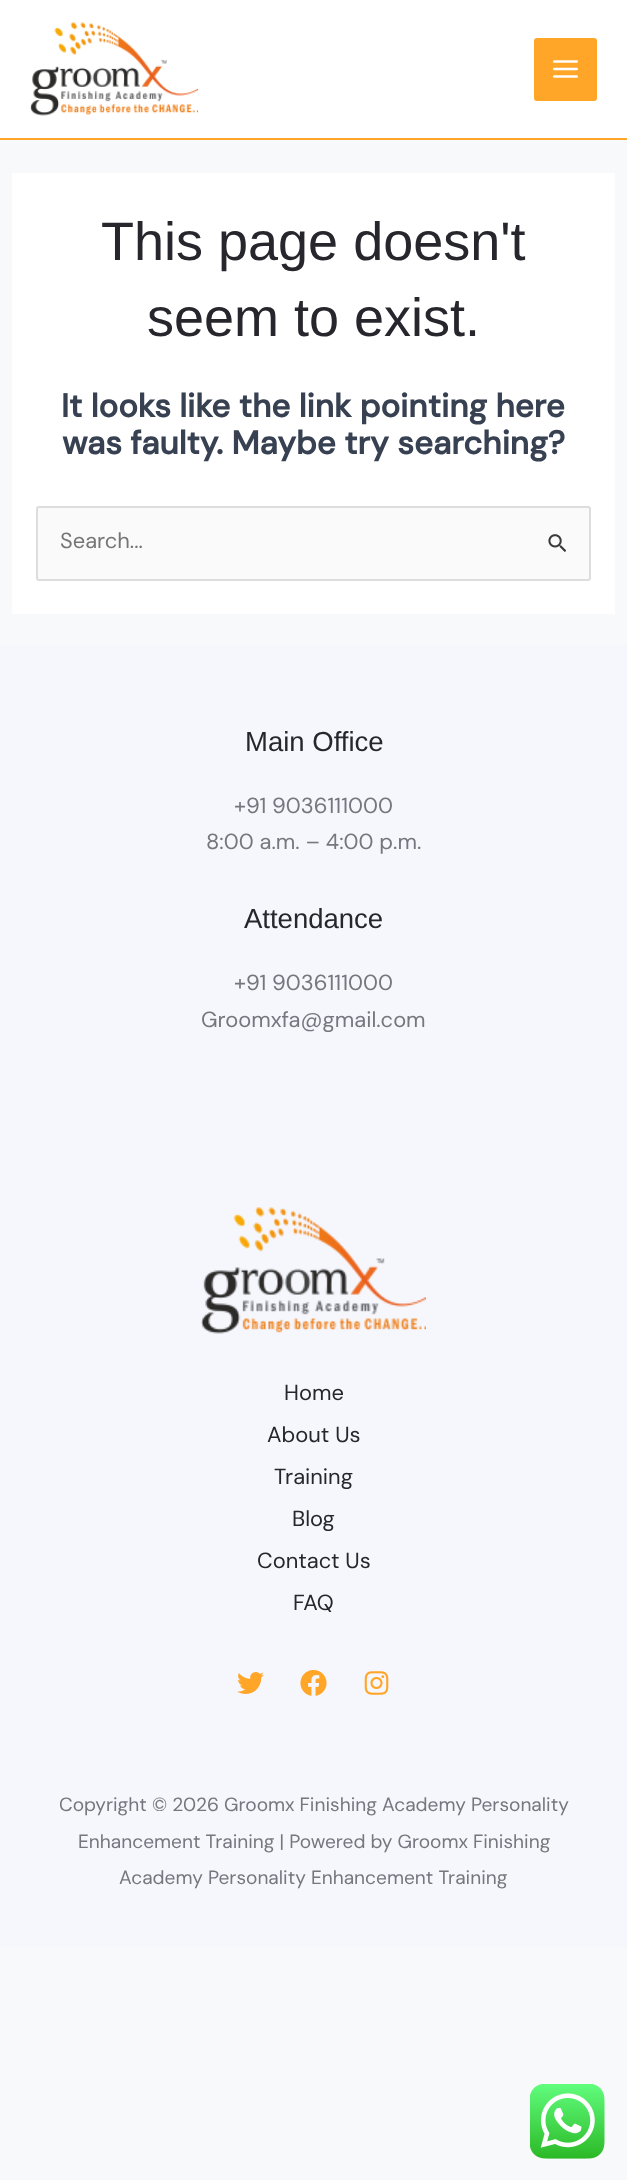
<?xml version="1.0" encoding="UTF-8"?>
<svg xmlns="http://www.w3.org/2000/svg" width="627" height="2180">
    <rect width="100%" height="100%" fill="#F8F9FA"/>
    <rect x="0" y="0" width="627" height="138" fill="#FFFFFF"/>
    <rect x="0" y="138" width="627" height="2" fill="#FFA629"/>
    <image x="30" y="22" width="168" height="94" href="img_01.png"/>
    <rect x="534" y="38" width="63" height="63" rx="3" fill="#FFA629"/>
    <image x="553" y="60" width="25" height="18" href="img_02.png"/>
    <rect x="12" y="173" width="603" height="441" fill="#FFFFFF"/>
    <text x="101" y="260" font-family="Liberation Sans" font-size="54" fill="#26262C">This page doesn't</text>
    <text x="147" y="336" font-family="Liberation Sans" font-size="54" fill="#26262C">seem to exist.</text>
    <text x="61" y="417" font-family="DM Sans" font-size="32.8" font-weight="700" fill="#374151">It looks like the link pointing here</text>
    <text x="62" y="454" font-family="DM Sans" font-size="32.8" font-weight="700" fill="#374151">was faulty. Maybe try searching?</text>
    <rect x="37" y="507" width="553" height="73" rx="2" fill="#FAFAFA" stroke="#DDDDDD" stroke-width="2"/>
    <text x="60" y="548" font-family="DM Sans" font-size="21.9" fill="#757575">Search...</text>
    <image x="548" y="534" width="18" height="18" href="img_03.png"/>
    <rect x="0" y="645" width="627" height="1302" fill="#F6F7FD"/>
    <text x="245" y="751" font-family="Liberation Sans" font-size="27.5" fill="#26262C">Main Office</text>
    <text x="234" y="813" font-family="DM Sans" font-size="21.9" fill="#76767F">+91 9036111000</text>
    <text x="206" y="849" font-family="DM Sans" font-size="21.9" fill="#76767F">8:00 a.m. – 4:00 p.m.</text>
    <text x="244" y="928" font-family="Liberation Sans" font-size="27.5" fill="#26262C">Attendance</text>
    <text x="234" y="990" font-family="DM Sans" font-size="21.9" fill="#76767F">+91 9036111000</text>
    <text x="201" y="1027" font-family="DM Sans" font-size="21.9" fill="#76767F">Groomxfa@gmail.com</text>
    <image x="201" y="1207" width="225" height="127" href="img_04.png"/>
    <text x="284" y="1400" font-family="DM Sans" font-size="21.9" fill="#26262C">Home</text>
    <text x="267" y="1442" font-family="DM Sans" font-size="21.9" fill="#26262C">About Us</text>
    <text x="274" y="1484" font-family="DM Sans" font-size="21.9" fill="#26262C">Training</text>
    <text x="292" y="1526" font-family="DM Sans" font-size="21.9" fill="#26262C">Blog</text>
    <text x="257" y="1568" font-family="DM Sans" font-size="21.9" fill="#26262C">Contact Us</text>
    <text x="293" y="1610" font-family="DM Sans" font-size="21.9" fill="#26262C">FAQ</text>
    <image x="237" y="1672" width="27" height="22" href="img_05.png"/>
    <image x="300" y="1670" width="27" height="26" href="img_06.png"/>
    <image x="364" y="1671" width="25" height="24" href="img_07.png"/>
    <text x="59" y="1811" font-family="DM Sans" font-size="19.15" fill="#76767F">Copyright © 2026 Groomx Finishing Academy Personality</text>
    <text x="78" y="1848" font-family="DM Sans" font-size="19.15" fill="#76767F">Enhancement Training | Powered by Groomx Finishing</text>
    <text x="119" y="1884" font-family="DM Sans" font-size="19.15" fill="#76767F">Academy Personality Enhancement Training</text>
    <image x="530" y="2084" width="75" height="75" href="img_08.png"/>
</svg>
